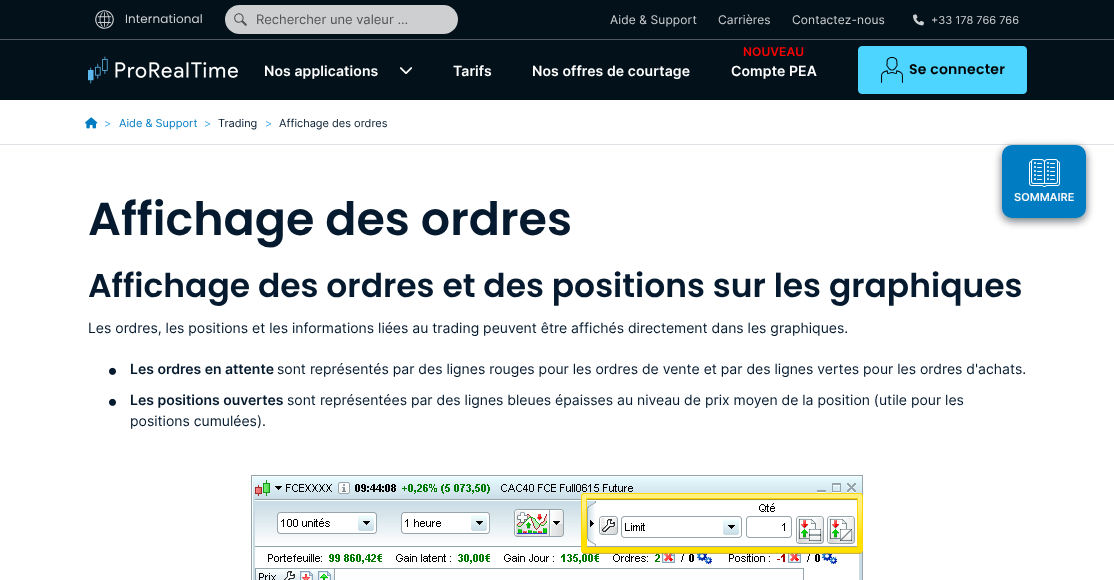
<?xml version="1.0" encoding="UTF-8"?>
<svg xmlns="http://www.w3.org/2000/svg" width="1114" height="580">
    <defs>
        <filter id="blur1" x="-50%" y="-200%" width="200%" height="500%"><feGaussianBlur stdDeviation="4"/></filter>
    </defs>
    <rect width="100%" height="100%" fill="#FFFFFF"/>
    <rect x="0" y="0" width="1114" height="100" fill="#03111A"/>
    <rect x="0" y="39" width="1114" height="1" fill="#4F585F"/>
    <image x="95" y="10" width="19" height="19" href="img_01.png"/>
    <text x="125" y="23" font-family="Poppins" font-size="12" letter-spacing="0.1" fill="#CDCFD1">International</text>
    <rect x="225" y="5" width="233" height="29" rx="14.5" fill="#CDCFD1"/>
    <image x="234" y="13" width="13" height="13" href="img_02.png"/>
    <text x="256" y="24" font-family="Inter" font-size="13" fill="#555555">Rechercher une valeur ...</text>
    <text x="610" y="24" font-family="Inter" font-size="12" letter-spacing="0.1" fill="#CDCFD1">Aide &amp; Support</text>
    <text x="718" y="24" font-family="Inter" font-size="12" letter-spacing="0.1" fill="#CDCFD1">Carrières</text>
    <text x="792" y="24" font-family="Inter" font-size="12" letter-spacing="0.1" fill="#CDCFD1">Contactez-nous</text>
    <image x="913" y="14" width="11" height="12" href="img_03.png"/>
    <text x="931" y="24" font-family="Inter" font-size="11" fill="#CDCFD1">+33 178 766 766</text>
    <image x="88" y="56" width="150" height="28" href="img_04.png"/>
    <text x="264" y="76" font-family="Inter" font-size="14" font-weight="600" letter-spacing="0.1" fill="#FFFFFF">Nos applications</text>
    <image x="400" y="67" width="12" height="7" href="img_05.png"/>
    <text x="453" y="76" font-family="Inter" font-size="14" font-weight="600" letter-spacing="0.1" fill="#FFFFFF">Tarifs</text>
    <text x="532" y="76" font-family="Inter" font-size="14" font-weight="600" letter-spacing="0.1" fill="#FFFFFF">Nos offres de courtage</text>
    <text x="743" y="56" font-family="Inter" font-size="12" font-weight="600" letter-spacing="0.1" fill="#FF0000">NOUVEAU</text>
    <text x="731" y="76" font-family="Inter" font-size="14" font-weight="600" letter-spacing="0.1" fill="#FFFFFF">Compte PEA</text>
    <rect x="858.5" y="46.5" width="168" height="47" rx="3.5" fill="#4DD5FF" stroke="#4DD5FF"/>
    <image x="881" y="57" width="22" height="26" href="img_06.png"/>
    <text x="909" y="74" font-family="Poppins" font-size="14" font-weight="600" letter-spacing="0.25" fill="#000000">Se connecter</text>
    <rect x="0" y="144" width="1114" height="1" fill="#DEE2E6"/>
    <image x="85" y="117" width="13" height="12" href="img_07.png"/>
    <text x="104" y="127" font-family="Inter" font-size="11" fill="#45ABE5">&gt;</text>
    <text x="119" y="127" font-family="Inter" font-size="11" fill="#007CC2">Aide &amp; Support</text>
    <text x="204" y="127" font-family="Inter" font-size="11" fill="#45ABE5">&gt;</text>
    <text x="218" y="127" font-family="Inter" font-size="11" fill="#051A2E">Trading</text>
    <text x="265" y="127" font-family="Inter" font-size="11" fill="#45ABE5">&gt;</text>
    <text x="279" y="127" font-family="Inter" font-size="11" fill="#051A2E">Affichage des ordres</text>
    <text x="88" y="235" font-family="Poppins" font-size="46" font-weight="600" fill="#051A2E">Affichage des ordres</text>
    <text x="88" y="297" font-family="Poppins" font-size="32.95" font-weight="600" fill="#051A2E">Affichage des ordres et des positions sur les graphiques</text>
    <text x="88" y="333" font-family="Inter" font-size="14" fill="#051A2E">Les ordres, les positions et les informations liées au trading peuvent être affichés directement dans les graphiques.</text>
    <image x="109" y="367" width="7" height="8" href="img_08.png"/>
    <text x="130" y="374" font-family="Inter" font-size="14" font-weight="600" fill="#051A2E">Les ordres en attente</text>
    <text x="277" y="374" font-family="Inter" font-size="14" fill="#051A2E">sont représentés par des lignes rouges pour les ordres de vente et par des lignes vertes pour les ordres d'achats.</text>
    <image x="109" y="398" width="7" height="8" href="img_08.png"/>
    <text x="130" y="405" font-family="Inter" font-size="14" font-weight="600" fill="#051A2E">Les positions ouvertes</text>
    <text x="287" y="405" font-family="Inter" font-size="14" fill="#051A2E">sont représentées par des lignes bleues épaisses au niveau de prix moyen de la position (utile pour les</text>
    <text x="130" y="426" font-family="Inter" font-size="14" fill="#051A2E">positions cumulées).</text>
    <image x="251" y="475" width="612" height="105" href="img_09.png"/>
    <rect x="1002" y="148" width="84" height="73" rx="10" fill="#03111A" fill-opacity="0.59" filter="url(#blur1)"/>
    <rect x="1002" y="145" width="84" height="73" rx="10" fill="#007CC2"/>
    <image x="1029" y="159" width="31" height="28" href="img_10.png"/>
    <text x="1014" y="201" font-family="Inter" font-size="11" font-weight="600" fill="#F8F9FA">SOMMAIRE</text>
</svg>
